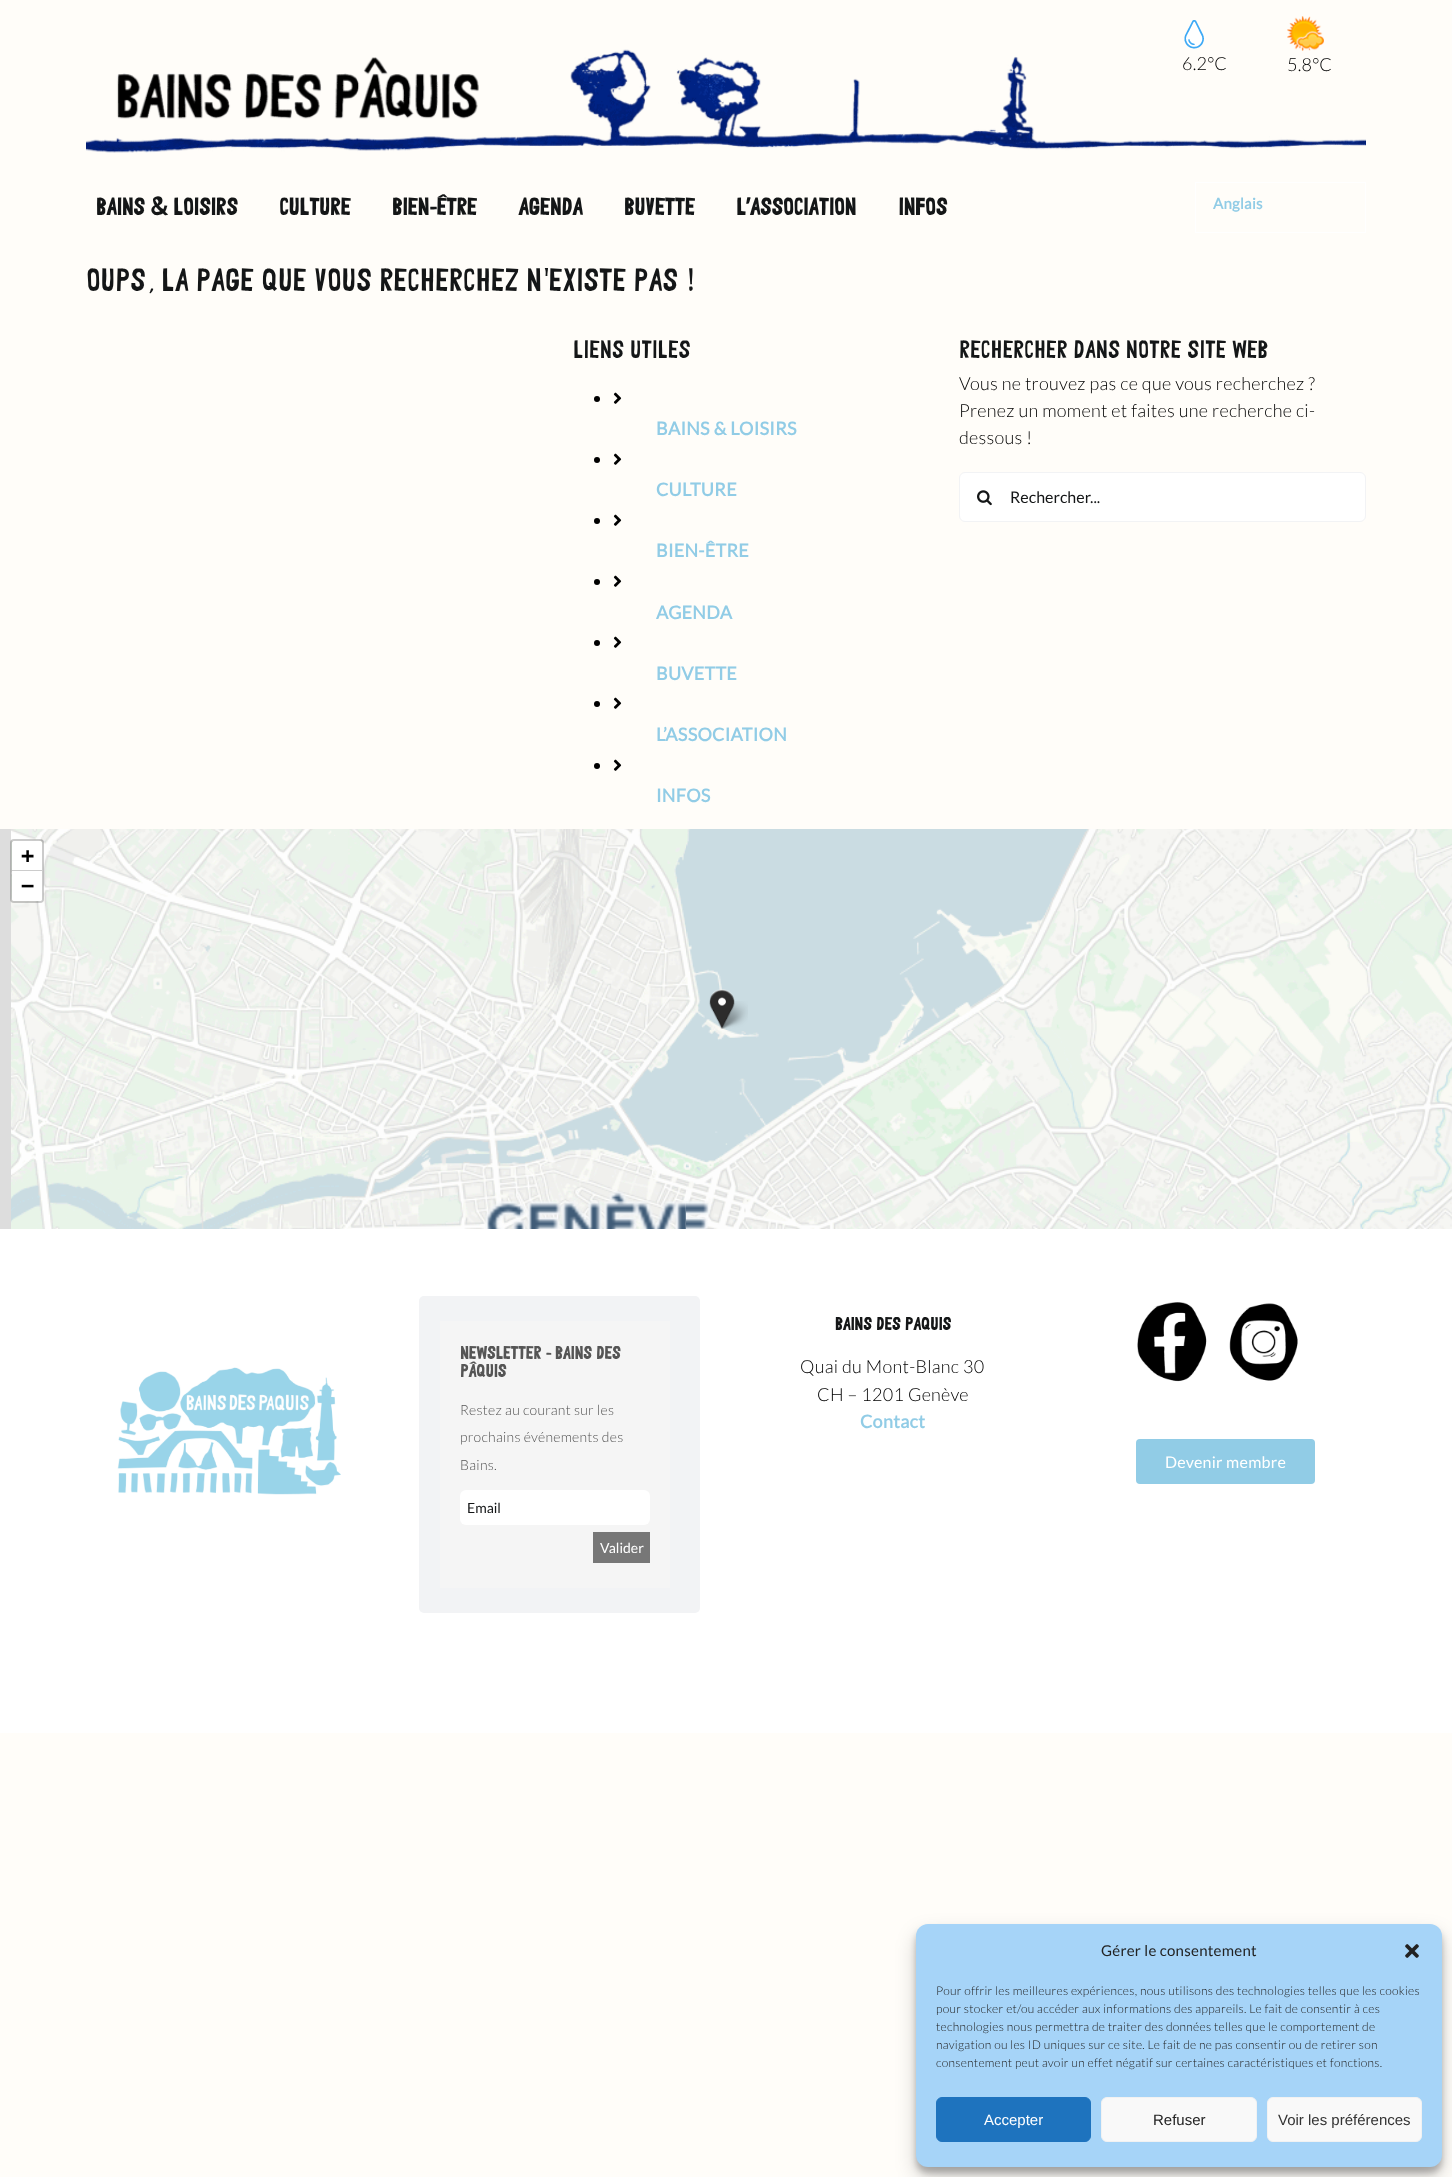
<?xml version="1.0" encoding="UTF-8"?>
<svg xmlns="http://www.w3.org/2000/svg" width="1452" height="2177">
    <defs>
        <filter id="blur1" x="-50%" y="-200%" width="200%" height="500%"><feGaussianBlur stdDeviation="3"/></filter>
        <filter id="blur2" x="-50%" y="-200%" width="200%" height="500%"><feGaussianBlur stdDeviation="10"/></filter>
    </defs>
    <rect width="100%" height="100%" fill="#FFFDF9"/>
    <image x="86" y="49" width="1280" height="104" href="img_01.png"/>
    <image x="1184" y="20" width="20" height="29" href="img_02.png"/>
    <text x="1182" y="70" font-family="Lato" font-size="18" font-weight="300" letter-spacing="0.27" fill="#000000">6.2°C</text>
    <image x="1287" y="16" width="37" height="35" href="img_03.png"/>
    <text x="1287" y="71" font-family="Lato" font-size="18" font-weight="300" letter-spacing="0.27" fill="#000000">5.8°C</text>
    <text x="96" y="215" font-family="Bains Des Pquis" font-size="24" font-weight="700" letter-spacing="-0.4" fill="#141617">BAINS &amp; LOISIRS</text>
    <text x="279" y="215" font-family="Bains Des Pquis" font-size="24" font-weight="700" letter-spacing="-0.4" fill="#141617">CULTURE</text>
    <text x="392" y="215" font-family="Bains Des Pquis" font-size="24" font-weight="700" letter-spacing="-0.4" fill="#141617">BIEN-ÊTRE</text>
    <text x="518" y="215" font-family="Bains Des Pquis" font-size="24" font-weight="700" letter-spacing="-0.4" fill="#141617">AGENDA</text>
    <text x="624" y="215" font-family="Bains Des Pquis" font-size="24" font-weight="700" letter-spacing="-0.4" fill="#141617">BUVETTE</text>
    <text x="736" y="215" font-family="Bains Des Pquis" font-size="24" font-weight="700" letter-spacing="-0.4" fill="#141617">L’ASSOCIATION</text>
    <text x="898" y="215" font-family="Bains Des Pquis" font-size="24" font-weight="700" letter-spacing="-0.4" fill="#141617">INFOS</text>
    <rect x="1195.5" y="182.5" width="170" height="50" fill="none" stroke="#FFFFFF"/>
    <text x="1213" y="209" font-family="Lato" font-size="15" font-weight="700" letter-spacing="0.27" fill="#91CCE6">Anglais</text>
    <text x="86" y="291" font-family="Bains Des Pquis" font-size="32.4" letter-spacing="-0.5" fill="#141617">OUPS, LA PAGE QUE VOUS RECHERCHEZ N'EXISTE PAS !</text>
    <text x="573" y="358" font-family="Bains Des Pquis" font-size="25.25" letter-spacing="-0.4" fill="#141617">LIENS UTILES</text>
    <circle cx="597" cy="399" r="3" fill="#000000"/>
    <image x="613" y="392" width="9" height="12" href="img_04.png"/>
    <text x="656" y="435" font-family="Lato" font-size="18" font-weight="700" letter-spacing="0.27" fill="#91CCE6">BAINS &amp; LOISIRS</text>
    <circle cx="597" cy="460" r="3" fill="#000000"/>
    <image x="613" y="453" width="9" height="12" href="img_04.png"/>
    <text x="656" y="496" font-family="Lato" font-size="18" font-weight="700" letter-spacing="0.27" fill="#91CCE6">CULTURE</text>
    <circle cx="597" cy="521" r="3" fill="#000000"/>
    <image x="613" y="514" width="9" height="12" href="img_04.png"/>
    <text x="656" y="557" font-family="Lato" font-size="18" font-weight="700" letter-spacing="0.27" fill="#91CCE6">BIEN-ÊTRE</text>
    <circle cx="597" cy="582" r="3" fill="#000000"/>
    <image x="613" y="575" width="9" height="12" href="img_04.png"/>
    <text x="656" y="619" font-family="Lato" font-size="18" font-weight="700" letter-spacing="0.27" fill="#91CCE6">AGENDA</text>
    <circle cx="597" cy="643" r="3" fill="#000000"/>
    <image x="613" y="636" width="9" height="12" href="img_04.png"/>
    <text x="656" y="680" font-family="Lato" font-size="18" font-weight="700" letter-spacing="0.27" fill="#91CCE6">BUVETTE</text>
    <circle cx="597" cy="704" r="3" fill="#000000"/>
    <image x="613" y="697" width="9" height="12" href="img_04.png"/>
    <text x="656" y="741" font-family="Lato" font-size="18" font-weight="700" letter-spacing="0.27" fill="#91CCE6">L’ASSOCIATION</text>
    <circle cx="597" cy="766" r="3" fill="#000000"/>
    <image x="613" y="759" width="9" height="12" href="img_04.png"/>
    <text x="656" y="802" font-family="Lato" font-size="18" font-weight="700" letter-spacing="0.27" fill="#91CCE6">INFOS</text>
    <text x="959" y="358" font-family="Bains Des Pquis" font-size="25.25" letter-spacing="-0.4" fill="#141617">RECHERCHER DANS NOTRE SITE WEB</text>
    <text font-family="Lato" font-size="18" font-weight="300" letter-spacing="0.27" fill="#000000">
        <tspan x="959" y="390">Vous ne trouvez pas ce que vous recherchez ?</tspan>
        <tspan x="959" y="417">Prenez un moment et faites une recherche ci-</tspan>
        <tspan x="959" y="444">dessous !</tspan>
    </text>
    <rect x="959.5" y="472.5" width="406" height="49" rx="5.5" fill="#FFFFFF" stroke="#F2F3F5"/>
    <image x="977" y="490" width="15" height="16" href="img_05.png"/>
    <text x="1010" y="503" font-family="Lato" font-size="16" fill="#141617">Rechercher...</text>
    <rect x="0" y="829" width="11" height="400" fill="#DDDDDD"/>
    <image x="11" y="829" width="337" height="201" href="img_06.png"/>
    <image x="348" y="829" width="338" height="201" href="img_07.png"/>
    <image x="686" y="829" width="338" height="201" href="img_08.png"/>
    <image x="1024" y="829" width="338" height="201" href="img_09.png"/>
    <image x="1362" y="829" width="90" height="201" href="img_10.png"/>
    <image x="11" y="1030" width="337" height="199" href="img_11.png"/>
    <image x="348" y="1030" width="338" height="199" href="img_12.png"/>
    <image x="686" y="1030" width="338" height="199" href="img_13.png"/>
    <image x="1024" y="1030" width="338" height="199" href="img_14.png"/>
    <image x="1362" y="1030" width="90" height="199" href="img_15.png"/>
    <image x="485" y="1191" width="202" height="38" href="img_16.png"/>
    <image x="686" y="1201" width="25" height="28" href="img_17.png"/>
    <image x="718" y="1001" width="30" height="28" href="img_19.png"/>
    <image x="709" y="989" width="26" height="40" href="img_18.png"/>
    <rect x="11" y="840" width="32" height="62" rx="3" fill="none" stroke="#000000" stroke-opacity="0.2" stroke-width="2"/>
    <path d="M 14 841 H 40 C 41 841 42 842 42 843 V 871 H 12 V 843 C 12 842 13 841 14 841 Z" fill="#FFFFFF"/>
    <rect x="12" y="870" width="30" height="1" fill="#CCCCCC"/>
    <text x="21" y="863" font-family="DejaVu Sans Mono" font-size="22" font-weight="700" letter-spacing="0.27" fill="#000000">+</text>
    <path d="M 12 871 H 42 V 899 C 42 900 41 901 40 901 H 14 C 13 901 12 900 12 899 Z" fill="#FFFFFF"/>
    <text x="21" y="893" font-family="DejaVu Sans Mono" font-size="22" font-weight="700" letter-spacing="0.27" fill="#000000">−</text>
    <rect x="0" y="1229" width="1452" height="504" fill="#FFFFFF"/>
    <image x="117" y="1367" width="224" height="128" href="img_20.png"/>
    <rect x="419" y="1296" width="281" height="317" rx="5" fill="#F2F3F5"/>
    <rect x="440" y="1321" width="230" height="267" fill="#F5F5F5"/>
    <text font-family="Bains Des Pquis" font-size="18" font-weight="700" letter-spacing="-0.25" fill="#555555">
        <tspan x="460" y="1359">NEWSLETTER - BAINS DES</tspan>
        <tspan x="460" y="1377">PÂQUIS</tspan>
    </text>
    <text font-family="Lato" font-size="14" font-weight="300" letter-spacing="0.27" fill="#555555">
        <tspan x="460" y="1415">Restez au courant sur les</tspan>
        <tspan x="460" y="1442">prochains événements des</tspan>
    </text>
    <text x="460" y="1470" font-family="Lato" font-size="14" font-weight="300" letter-spacing="0.27" fill="#555555">Bains.</text>
    <rect x="460" y="1490" width="190" height="35" rx="6" fill="#FFFFFF"/>
    <text x="467" y="1513" font-family="Lato" font-size="14" fill="#141617">Email</text>
    <rect x="593" y="1532" width="57" height="31" fill="#777777"/>
    <text x="600" y="1553" font-family="Lato" font-size="14" fill="#FFFFFF">Valider</text>
    <text x="835" y="1330" font-family="Bains Des Pquis" font-size="18" font-weight="700" letter-spacing="-0.25" fill="#141617">BAINS DES PAQUIS</text>
    <text x="800" y="1373" font-family="Lato" font-size="18" font-weight="300" letter-spacing="0.27" fill="#000000">Quai du Mont-Blanc 30</text>
    <text x="817" y="1401" font-family="Lato" font-size="18" font-weight="300" letter-spacing="0.27" fill="#000000">CH – 1201 Genève</text>
    <text x="860" y="1428" font-family="Lato" font-size="18" font-weight="700" letter-spacing="0.27" fill="#91CCE6">Contact</text>
    <image x="1137" y="1302" width="70" height="80" href="img_21.png"/>
    <image x="1229" y="1303" width="69" height="78" href="img_22.png"/>
    <rect x="1136" y="1439" width="179" height="45" rx="4" fill="#91CCE6"/>
    <text x="1165" y="1468" font-family="Lato" font-size="16" letter-spacing="0.25" fill="#FFFFFF">Devenir membre</text>
    <rect x="916" y="1930" width="526" height="243" rx="12" fill="#000000" fill-opacity="0.23" filter="url(#blur1)"/>
    <rect x="916" y="1934" width="526" height="243" rx="12" fill="#000000" fill-opacity="0.19" filter="url(#blur2)"/>
    <rect x="916" y="1924" width="526" height="243" rx="12" fill="#A6D4F8"/>
    <text x="1101" y="1956" font-family="Lato" font-size="15" letter-spacing="0.27" fill="#222222">Gérer le consentement</text>
    <image x="1405" y="1944" width="14" height="14" href="img_23.png"/>
    <text font-family="Lato" font-size="12" font-weight="300" letter-spacing="0.27" fill="#222222">
        <tspan x="936" y="1995">Pour offrir les meilleures expériences, nous utilisons des technologies telles que les cookies</tspan>
        <tspan x="936" y="2013">pour stocker et/ou accéder aux informations des appareils. Le fait de consentir à ces</tspan>
        <tspan x="936" y="2031">technologies nous permettra de traiter des données telles que le comportement de</tspan>
        <tspan x="936" y="2049">navigation ou les ID uniques sur ce site. Le fait de ne pas consentir ou de retirer son</tspan>
        <tspan x="936" y="2067">consentement peut avoir un effet négatif sur certaines caractéristiques et fonctions.</tspan>
    </text>
    <rect x="936.5" y="2097.5" width="154" height="44" rx="5.5" fill="#1E73BE" stroke="#1E73BE"/>
    <text x="984" y="2125" font-family="Liberation Sans" font-size="15" fill="#FFFFFF">Accepter</text>
    <rect x="1101.5" y="2097.5" width="155" height="44" rx="5.5" fill="#F9F9F9" stroke="#F2F2F2"/>
    <text x="1153" y="2125" font-family="Liberation Sans" font-size="15" fill="#222222">Refuser</text>
    <rect x="1267.5" y="2097.5" width="154" height="44" rx="5.5" fill="#F9F9F9" stroke="#F2F2F2"/>
    <text x="1278" y="2125" font-family="Liberation Sans" font-size="15" fill="#333333">Voir les préférences</text>
</svg>
